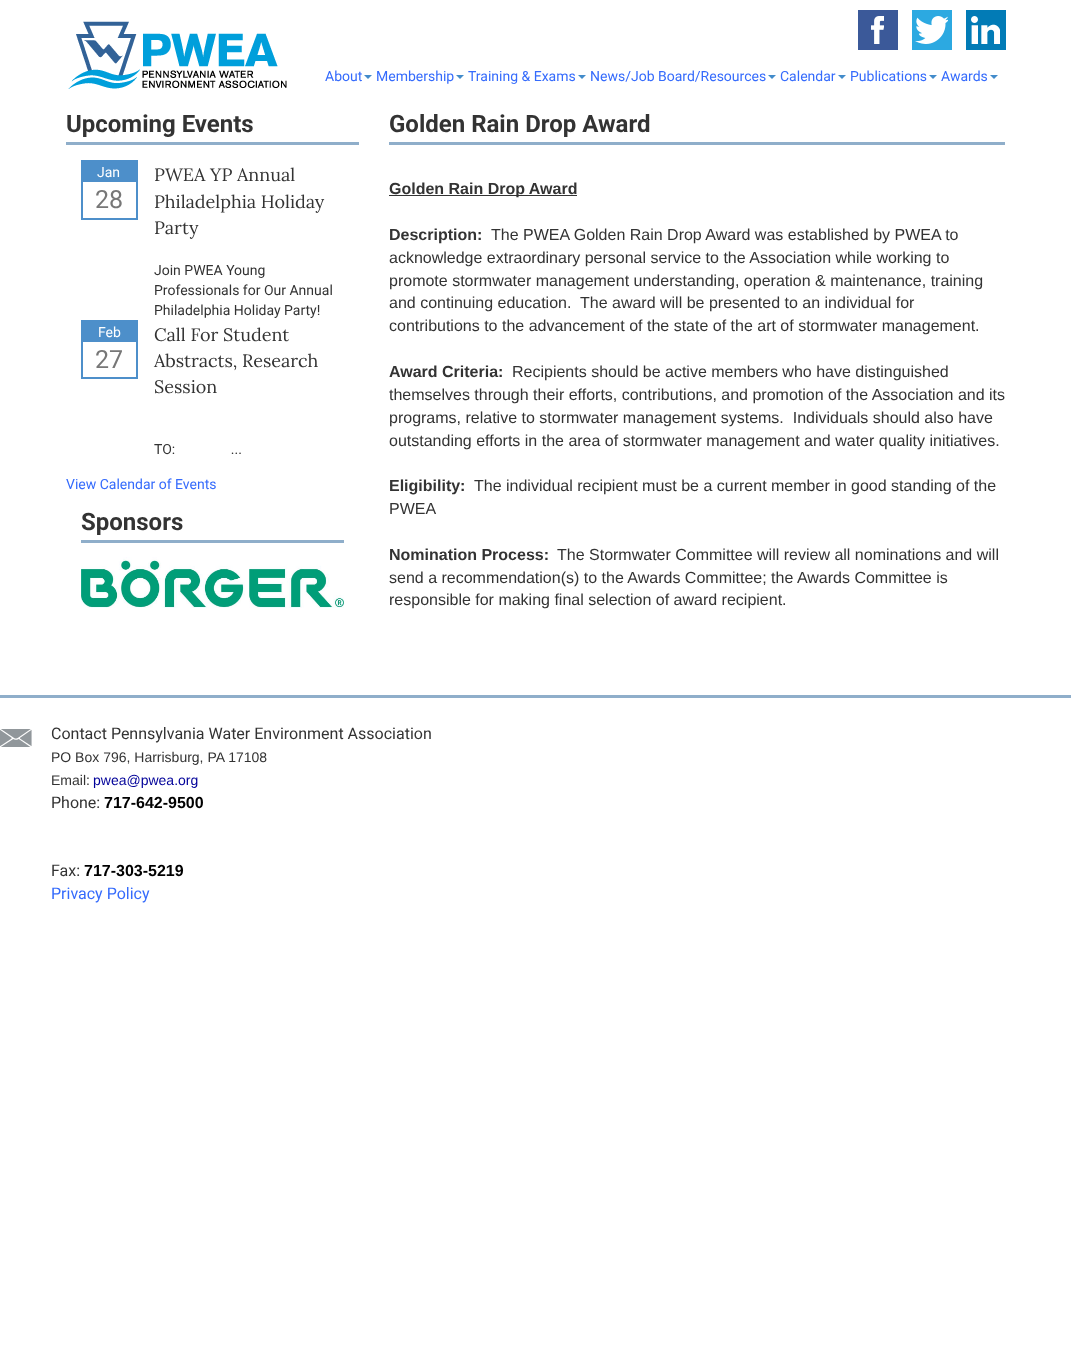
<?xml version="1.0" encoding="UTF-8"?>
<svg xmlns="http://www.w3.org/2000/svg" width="1071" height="1354">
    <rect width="100%" height="100%" fill="#FFFFFF"/>
    <image x="68" y="21" width="219" height="68" href="img_01.png"/>
    <rect x="858" y="10" width="40" height="40" fill="#3B5999"/>
    <image x="871" y="16" width="13" height="28" href="img_02.png"/>
    <rect x="912" y="10" width="40" height="40" fill="#2CA9E1"/>
    <image x="915" y="16" width="33" height="28" href="img_03.png"/>
    <rect x="966" y="10" width="40" height="40" fill="#027BB6"/>
    <image x="971" y="16" width="29" height="28" href="img_04.png"/>
    <text x="325" y="81" font-family="Roboto" font-size="14" fill="#356BFC">About</text>
    <path d="M 364 75 H 372 L 368 79 Z" fill="#428BCA"/>
    <text x="376" y="81" font-family="Roboto" font-size="14" fill="#356BFC">Membership</text>
    <path d="M 456 75 H 464 L 460 79 Z" fill="#428BCA"/>
    <text x="468" y="81" font-family="Roboto" font-size="14" fill="#356BFC">Training &amp; Exams</text>
    <path d="M 578 75 H 586 L 582 79 Z" fill="#428BCA"/>
    <text x="590" y="81" font-family="Roboto" font-size="14" fill="#356BFC">News/Job Board/Resources</text>
    <path d="M 768 75 H 776 L 772 79 Z" fill="#428BCA"/>
    <text x="780" y="81" font-family="Roboto" font-size="14" fill="#356BFC">Calendar</text>
    <path d="M 838 75 H 846 L 842 79 Z" fill="#428BCA"/>
    <text x="850" y="81" font-family="Roboto" font-size="14" fill="#356BFC">Publications</text>
    <path d="M 929 75 H 937 L 933 79 Z" fill="#428BCA"/>
    <text x="941" y="81" font-family="Roboto" font-size="14" fill="#356BFC">Awards</text>
    <path d="M 990 75 H 998 L 994 79 Z" fill="#428BCA"/>
    <rect x="66" y="142" width="293" height="3" fill="#8FAECA"/>
    <text x="66" y="132" font-family="Roboto" font-size="24" font-weight="700" fill="#333333">Upcoming Events</text>
    <rect x="81" y="160" width="57" height="60" fill="#4D8FCA"/>
    <text x="97" y="177" font-family="Roboto" font-size="14" fill="#FFFFFF">Jan</text>
    <rect x="83" y="182" width="53" height="36" fill="#FFFFFF"/>
    <text x="95" y="208" font-family="Roboto" font-size="25" fill="#777777">28</text>
    <text font-family="Lora" font-size="18" fill="#333333">
        <tspan x="154" y="181">PWEA YP Annual</tspan>
        <tspan x="154" y="208">Philadelphia Holiday</tspan>
        <tspan x="154" y="234">Party</tspan>
    </text>
    <text font-family="Roboto" font-size="14" fill="#333333">
        <tspan x="154" y="275">Join PWEA Young</tspan>
        <tspan x="154" y="295">Professionals for Our Annual</tspan>
        <tspan x="154" y="315">Philadelphia Holiday Party!</tspan>
    </text>
    <rect x="81" y="320" width="57" height="59" fill="#4D8FCA"/>
    <text x="98" y="337" font-family="Roboto" font-size="14" fill="#FFFFFF">Feb</text>
    <rect x="83" y="342" width="53" height="35" fill="#FFFFFF"/>
    <text x="95" y="368" font-family="Roboto" font-size="25" fill="#777777">27</text>
    <text font-family="Lora" font-size="18" fill="#333333">
        <tspan x="154" y="341">Call For Student</tspan>
        <tspan x="154" y="367">Abstracts, Research</tspan>
        <tspan x="154" y="393">Session</tspan>
    </text>
    <text x="154" y="454" font-family="Roboto" font-size="14" fill="#333333" xml:space="preserve">TO:                ...</text>
    <text x="66" y="489" font-family="Roboto" font-size="14" fill="#356BFC">View Calendar of Events</text>
    <rect x="81" y="540" width="263" height="3" fill="#8FAECA"/>
    <text x="81" y="530" font-family="Roboto" font-size="24" font-weight="700" fill="#333333">Sponsors</text>
    <image x="81" y="557" width="263" height="51" href="img_05.png"/>
    <rect x="389" y="142" width="616" height="3" fill="#8FAECA"/>
    <text x="389" y="132" font-family="Roboto" font-size="24" font-weight="700" fill="#333333">Golden Rain Drop Award</text>
    <rect x="389" y="195" width="188" height="1" fill="#333333"/>
    <text x="389" y="194" font-family="Liberation Sans" font-size="16" font-weight="700" fill="#333333">Golden Rain Drop Award</text>
    <text x="389" y="240" font-family="Liberation Sans" font-size="16" font-weight="700" fill="#333333">Description:</text>
    <text x="491" y="240" font-family="Liberation Sans" font-size="16" fill="#333333">The PWEA Golden Rain Drop Award was established by PWEA to</text>
    <text font-family="Liberation Sans" font-size="16" fill="#333333" xml:space="preserve"><tspan x="389" y="263">acknowledge extraordinary personal service to the Association while working to</tspan><tspan x="389" y="286">promote stormwater management understanding, operation &amp; maintenance, training</tspan><tspan x="389" y="308">and continuing education.  The award will be presented to an individual for</tspan><tspan x="389" y="331">contributions to the advancement of the state of the art of stormwater management.</tspan></text>
    <text x="389" y="377" font-family="Liberation Sans" font-size="16" font-weight="700" fill="#333333">Award Criteria:</text>
    <text x="512" y="377" font-family="Liberation Sans" font-size="16" fill="#333333">Recipients should be active members who have distinguished</text>
    <text font-family="Liberation Sans" font-size="16" fill="#333333" xml:space="preserve"><tspan x="389" y="400">themselves through their efforts, contributions, and promotion of the Association and its</tspan><tspan x="389" y="423">programs, relative to stormwater management systems.  Individuals should also have</tspan><tspan x="389" y="446">outstanding efforts in the area of stormwater management and water quality initiatives.</tspan></text>
    <text x="389" y="491" font-family="Liberation Sans" font-size="16" font-weight="700" fill="#333333">Eligibility:</text>
    <text x="474" y="491" font-family="Liberation Sans" font-size="16" fill="#333333">The individual recipient must be a current member in good standing of the</text>
    <text x="389" y="514" font-family="Liberation Sans" font-size="16" fill="#333333">PWEA</text>
    <text x="389" y="560" font-family="Liberation Sans" font-size="16" font-weight="700" fill="#333333">Nomination Process:</text>
    <text x="557" y="560" font-family="Liberation Sans" font-size="16" fill="#333333">The Stormwater Committee will review all nominations and will</text>
    <text font-family="Liberation Sans" font-size="16" fill="#333333">
        <tspan x="389" y="583">send a recommendation(s) to the Awards Committee; the Awards Committee is</tspan>
        <tspan x="389" y="605">responsible for making final selection of award recipient.</tspan>
    </text>
    <rect x="0" y="695" width="1071" height="3" fill="#8FAECA"/>
    <image x="0" y="729" width="32" height="18" href="img_06.png"/>
    <text x="51" y="739" font-family="Roboto" font-size="16" fill="#333333">Contact Pennsylvania Water Environment Association</text>
    <text font-family="Liberation Sans" font-size="14" fill="#333333">
        <tspan x="51" y="762">PO Box 796, Harrisburg, PA 17108</tspan>
        <tspan x="51" y="785">Email:</tspan>
    </text>
    <text x="93" y="785" font-family="Liberation Sans" font-size="14" fill="#000099">pwea@pwea.org</text>
    <text x="51" y="808" font-family="Roboto" font-size="16" fill="#333333">Phone:</text>
    <text x="104" y="808" font-family="Liberation Sans" font-size="16" font-weight="700" fill="#000000">717-642-9500</text>
    <text x="51" y="876" font-family="Roboto" font-size="16" fill="#333333">Fax:</text>
    <text x="84" y="876" font-family="Liberation Sans" font-size="16" font-weight="700" fill="#000000">717-303-5219</text>
    <text x="51" y="899" font-family="Roboto" font-size="16" fill="#356BFC">Privacy Policy</text>
</svg>
